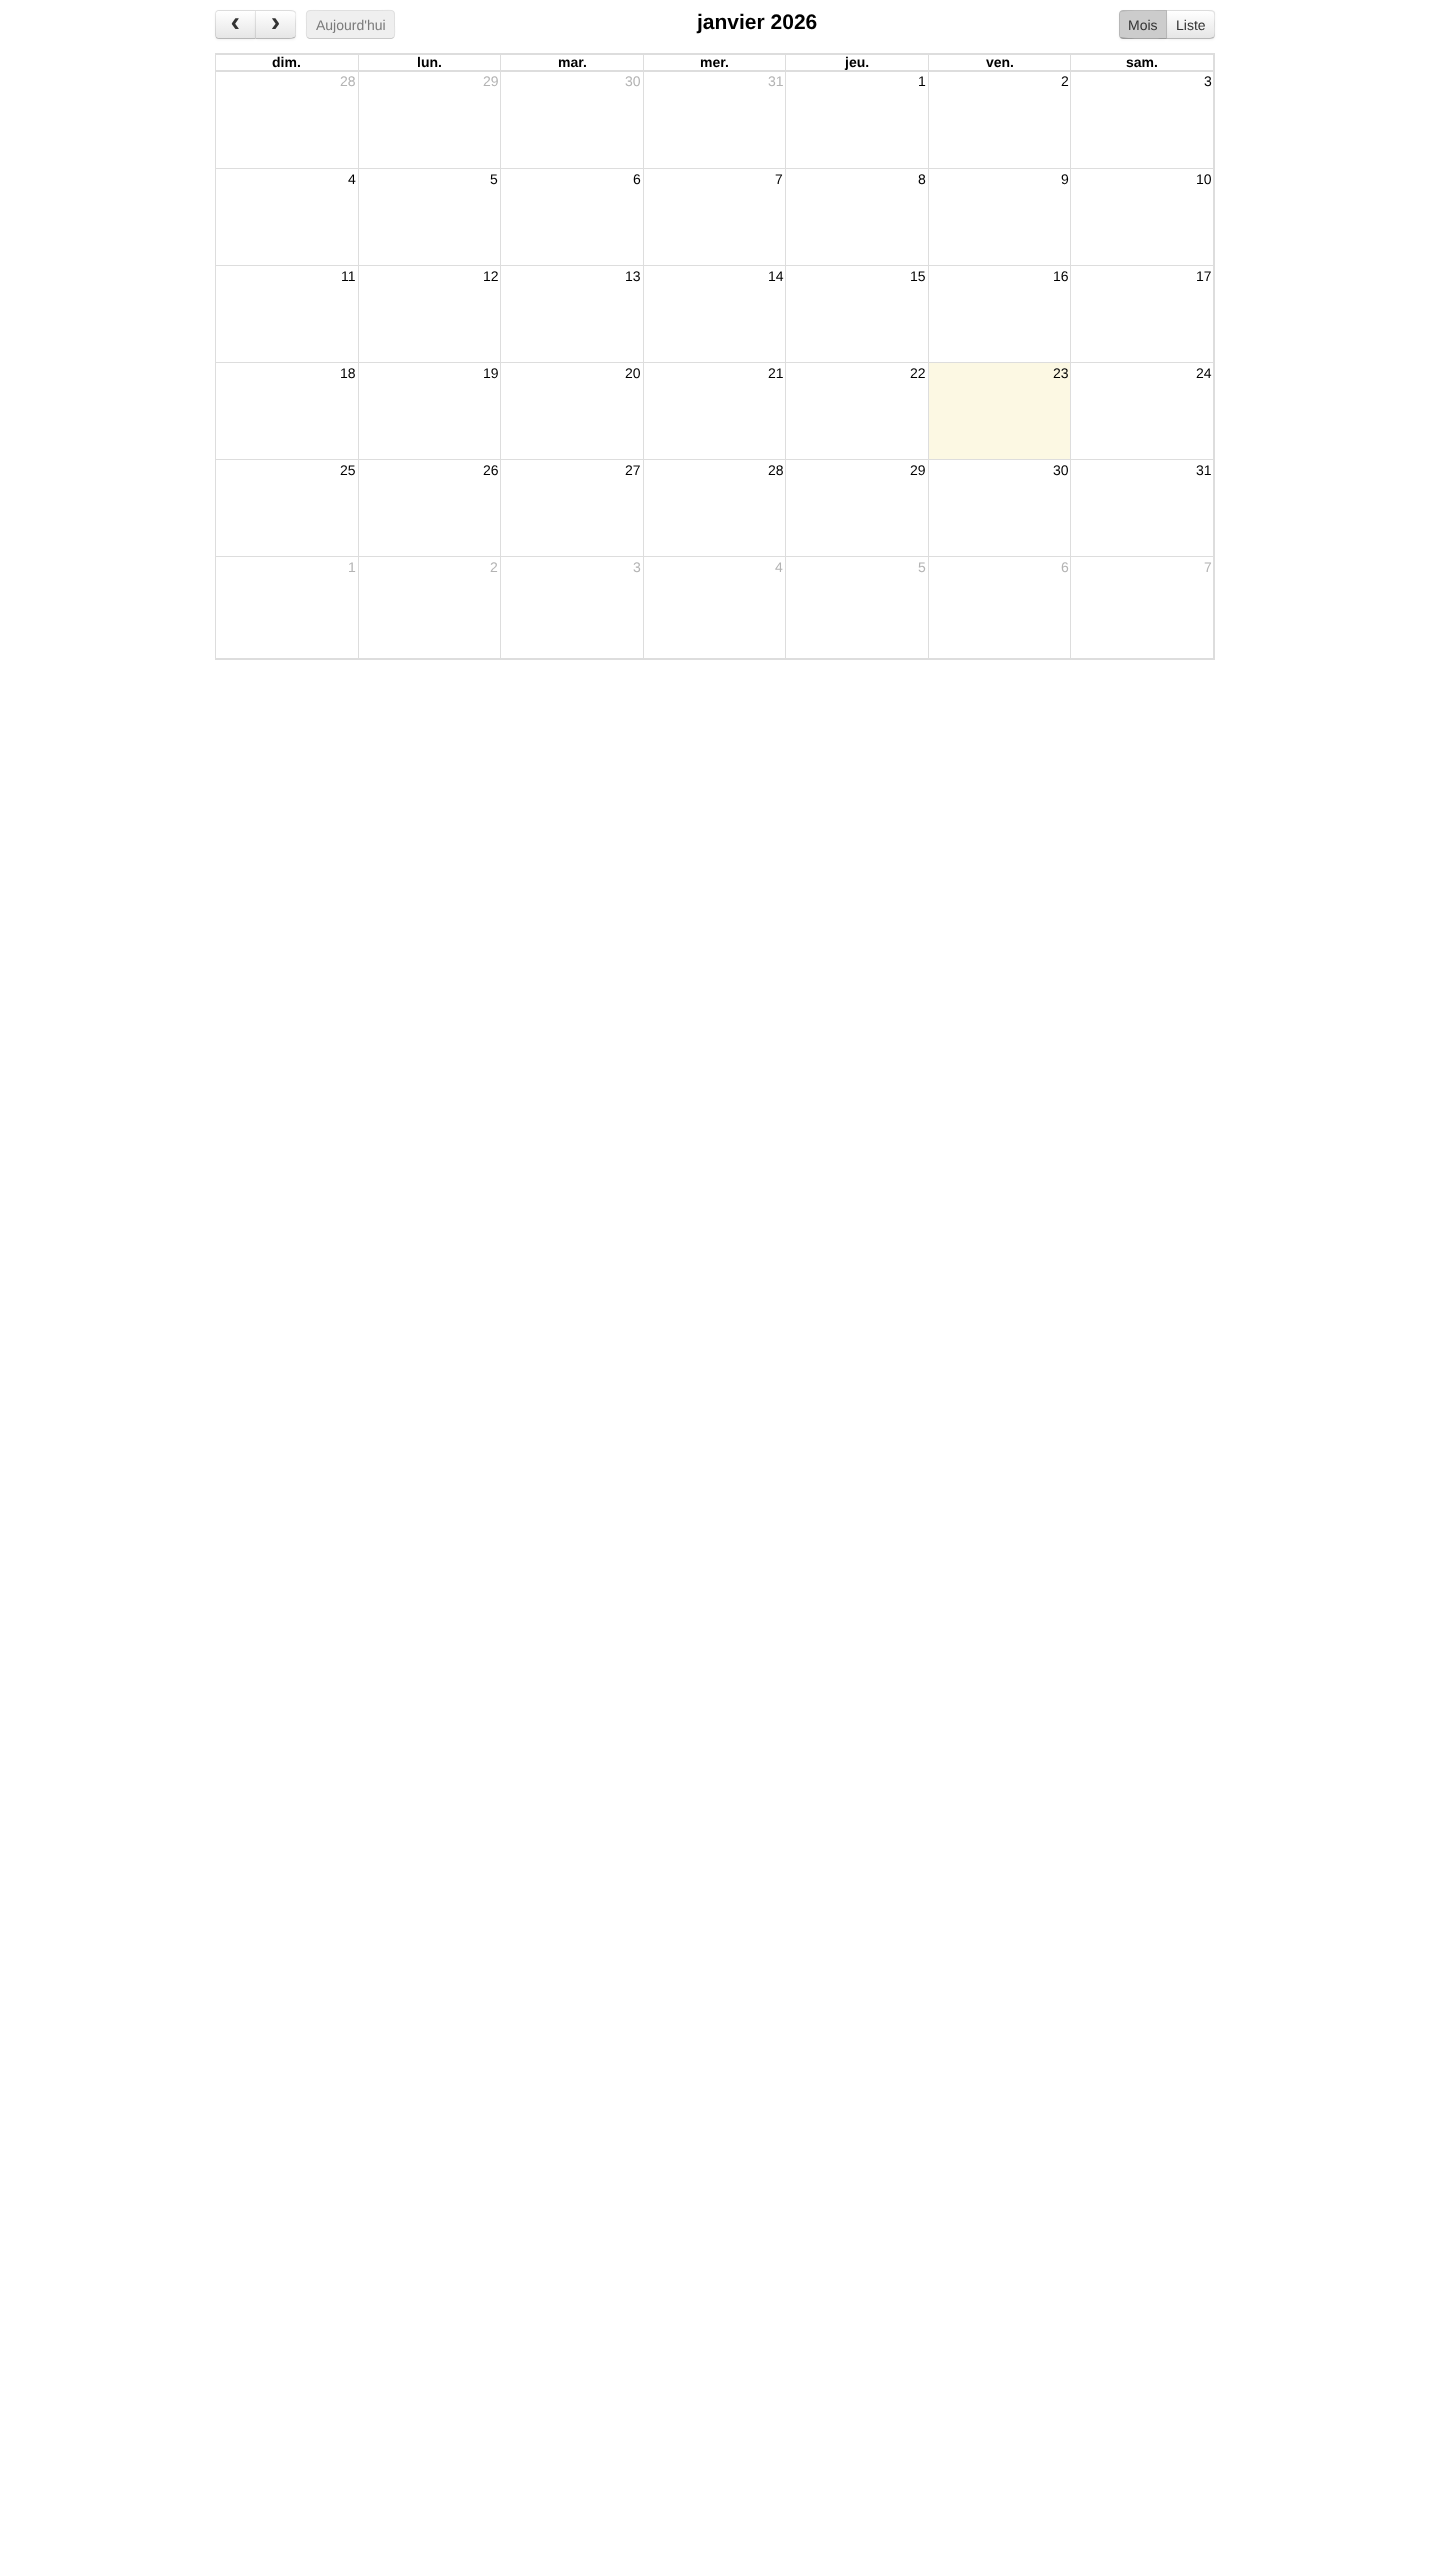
<?xml version="1.0" encoding="UTF-8"?>
<svg xmlns="http://www.w3.org/2000/svg" width="1429" height="2561">
    <defs>
        <filter id="blur1" x="-50%" y="-200%" width="200%" height="500%"><feGaussianBlur stdDeviation="1"/></filter>
        <clipPath id="clip1"><path d="M 219 10 H 256 V 39 H 219 C 217 39 215 37 215 35 V 14 C 215 12 217 10 219 10 Z"/></clipPath>
        <linearGradient id="g1" gradientUnits="userSpaceOnUse" x1="236" y1="11" x2="236" y2="38"><stop offset="0" stop-color="#FFFFFF"/><stop offset="1" stop-color="#E6E6E6"/></linearGradient>
        <clipPath id="clip2"><path d="M 255 10 H 292 C 294 10 296 12 296 14 V 35 C 296 37 294 39 292 39 H 255 Z"/></clipPath>
        <linearGradient id="g2" gradientUnits="userSpaceOnUse" x1="276" y1="11" x2="276" y2="38"><stop offset="0" stop-color="#FFFFFF"/><stop offset="1" stop-color="#E6E6E6"/></linearGradient>
        <clipPath id="clip3"><path d="M 1166 10 H 1211 C 1213 10 1215 12 1215 14 V 35 C 1215 37 1213 39 1211 39 H 1166 Z"/></clipPath>
        <linearGradient id="g3" gradientUnits="userSpaceOnUse" x1="1191" y1="11" x2="1191" y2="38"><stop offset="0" stop-color="#FFFFFF"/><stop offset="1" stop-color="#E6E6E6"/></linearGradient>
    </defs>
    <rect width="100%" height="100%" fill="#FFFFFF"/>
    <rect x="215" y="11" width="41" height="29" rx="4" fill="#000000" fill-opacity="0.05" filter="url(#blur1)"/>
    <path d="M 219 10 H 256 V 39 H 219 C 217 39 215 37 215 35 V 14 C 215 12 217 10 219 10 Z" fill="#F5F5F5"/>
    <g clip-path="url(#clip1)">
        <rect x="215" y="11" width="40" height="27" fill="url(#g1)"/>
    </g>
    <path d="M 219 10 C 218 10 217 10.5 216 11 L 217 12 C 217 11 218 11 219 11 H 255 L 256 10 Z" fill="#000000" fill-opacity="0.1"/>
    <path d="M 256 39 L 255 38 H 219 C 218 38 217 38 217 37 L 216 38 C 217 38.5 218 39 219 39 Z" fill="#000000" fill-opacity="0.25"/>
    <path d="M 215 14 V 35 C 215 36 215.5 37 216 38 L 217 37 C 216 37 216 36 216 35 V 14 C 216 13 216 12 217 12 L 216 11 C 215.5 12 215 13 215 14 Z" fill="#000000" fill-opacity="0.1"/>
    <text x="227" y="31" font-family="Liberation Mono" font-size="28" font-weight="700" fill="#333333">‹</text>
    <rect x="255" y="11" width="41" height="29" rx="4" fill="#000000" fill-opacity="0.05" filter="url(#blur1)"/>
    <path d="M 255 10 H 292 C 294 10 296 12 296 14 V 35 C 296 37 294 39 292 39 H 255 Z" fill="#F5F5F5"/>
    <g clip-path="url(#clip2)">
        <rect x="255" y="11" width="41" height="27" fill="url(#g2)"/>
    </g>
    <path d="M 255 10 L 256 11 H 286 C 290.5 11 293 11 294 12 L 295 11 C 293.5 10.5 291 10 286 10 Z" fill="#000000" fill-opacity="0.1"/>
    <path d="M 296 36 L 295 38 L 294 37 C 295 36.5 295 35.5 295.5 35 L 295 24 L 295.5 14 C 295 13 295 12.5 294 12 L 295 11 L 296 13 Z" fill="#000000" fill-opacity="0.1"/>
    <path d="M 286 39 C 290.5 39 293.5 38.5 295 38 L 294 37 C 293 38 290.5 38 286 38 H 256 L 255 39 Z" fill="#000000" fill-opacity="0.25"/>
    <path d="M 255 10 V 39 L 256 38 V 11 Z" fill="#000000" fill-opacity="0.1"/>
    <text x="267" y="31" font-family="Liberation Mono" font-size="28" font-weight="700" fill="#333333">›</text>
    <rect x="306" y="10" width="89" height="29" rx="4" fill="#EFEFEF"/>
    <path d="M 393.5 37.5 L 391.5 38.5 H 309.5 L 307.5 37.5" fill="none" stroke="#595959" stroke-opacity="0.25"/>
    <path d="M 307.5 37.5 C 305.5 35.5 306.5 30.5 306.5 28 C 306.5 8 303 10.5 323.5 10.5 H 377.5 C 396.5 10.5 394.5 7.5 394.5 24.5 C 394.5 27 395.5 35.5 393.5 37.5" fill="none" stroke="#595959" stroke-opacity="0.1"/>
    <text x="316" y="30" font-family="Liberation Sans" font-size="14" fill="#7A7A7A">Aujourd'hui</text>
    <text x="697" y="29" font-family="Liberation Sans" font-size="21" font-weight="700" fill="#000000">janvier 2026</text>
    <rect x="1166" y="11" width="49" height="29" rx="4" fill="#000000" fill-opacity="0.05" filter="url(#blur1)"/>
    <path d="M 1166 10 H 1211 C 1213 10 1215 12 1215 14 V 35 C 1215 37 1213 39 1211 39 H 1166 Z" fill="#F5F5F5"/>
    <g clip-path="url(#clip3)">
        <rect x="1167" y="11" width="48" height="27" fill="url(#g3)"/>
    </g>
    <path d="M 1166 10 L 1167 11 H 1204 C 1209 11 1212 11 1213 12 L 1214 11 C 1212 10 1210 10 1204 10 Z" fill="#000000" fill-opacity="0.1"/>
    <path d="M 1215 36 L 1214 38 L 1213 37 C 1215.5 35.5 1214 26.5 1214 24 C 1214 22 1215 13 1213 12 L 1214 11 L 1215 12.5 Z" fill="#000000" fill-opacity="0.1"/>
    <path d="M 1204 39 C 1209 39 1212 39 1214 38 L 1213 37 C 1212 38 1209 38 1204 38 H 1167 L 1166 39 Z" fill="#000000" fill-opacity="0.25"/>
    <rect x="1119" y="11" width="48" height="29" rx="4" fill="#000000" fill-opacity="0.05" filter="url(#blur1)"/>
    <path d="M 1123 10 H 1167 V 39 H 1123 C 1121 39 1119 37 1119 35 V 14 C 1119 12 1121 10 1123 10 Z" fill="#CCCCCC"/>
    <path d="M 1123 10 L 1120 11 L 1121 12 C 1123 10 1161 11 1166 11 L 1167 10 Z" fill="#000000" fill-opacity="0.1"/>
    <path d="M 1167 10 L 1166 11 V 38 L 1167 39 Z" fill="#000000" fill-opacity="0.1"/>
    <path d="M 1167 39 L 1166 38 C 1161 38 1123 39 1121 37 L 1120 38 L 1123 39 Z" fill="#000000" fill-opacity="0.25"/>
    <path d="M 1119 14 V 35 C 1119 36 1119.5 37 1120 38 L 1121 37 C 1120 37 1120 36 1120 35 V 14 C 1120 13 1120 12 1121 12 L 1120 11 C 1119.5 12 1119 13 1119 14 Z" fill="#000000" fill-opacity="0.1"/>
    <text x="1128" y="30" font-family="Liberation Sans" font-size="14" fill="#333333">Mois</text>
    <text x="1176" y="30" font-family="Liberation Sans" font-size="14" fill="#333333">Liste</text>
    <rect x="215" y="53" width="1000" height="1" fill="#DDDDDD"/>
    <rect x="215" y="70" width="1000" height="1" fill="#DDDDDD"/>
    <rect x="1214" y="70" width="1" height="590" fill="#DDDDDD"/>
    <rect x="1214" y="53" width="1" height="18" fill="#DDDDDD"/>
    <rect x="215" y="659" width="1000" height="1" fill="#DDDDDD"/>
    <rect x="215" y="70" width="1" height="590" fill="#DDDDDD"/>
    <rect x="215" y="53" width="1" height="18" fill="#DDDDDD"/>
    <rect x="1070" y="54" width="144" height="1" fill="#DDDDDD"/>
    <rect x="1070" y="54" width="1" height="17" fill="#DDDDDD"/>
    <rect x="928" y="54" width="143" height="1" fill="#DDDDDD"/>
    <rect x="928" y="54" width="1" height="17" fill="#DDDDDD"/>
    <rect x="785" y="54" width="144" height="1" fill="#DDDDDD"/>
    <rect x="785" y="54" width="1" height="17" fill="#DDDDDD"/>
    <rect x="643" y="54" width="143" height="1" fill="#DDDDDD"/>
    <rect x="643" y="54" width="1" height="17" fill="#DDDDDD"/>
    <rect x="500" y="54" width="144" height="1" fill="#DDDDDD"/>
    <rect x="500" y="54" width="1" height="17" fill="#DDDDDD"/>
    <rect x="358" y="54" width="143" height="1" fill="#DDDDDD"/>
    <rect x="358" y="54" width="1" height="17" fill="#DDDDDD"/>
    <rect x="215" y="54" width="144" height="1" fill="#DDDDDD"/>
    <text x="272" y="67" font-family="Liberation Sans" font-size="14" font-weight="700" fill="#000000">dim.</text>
    <text x="417" y="67" font-family="Liberation Sans" font-size="14" font-weight="700" fill="#000000">lun.</text>
    <text x="558" y="67" font-family="Liberation Sans" font-size="14" font-weight="700" fill="#000000">mar.</text>
    <text x="700" y="67" font-family="Liberation Sans" font-size="14" font-weight="700" fill="#000000">mer.</text>
    <text x="845" y="67" font-family="Liberation Sans" font-size="14" font-weight="700" fill="#000000">jeu.</text>
    <text x="986" y="67" font-family="Liberation Sans" font-size="14" font-weight="700" fill="#000000">ven.</text>
    <rect x="1213" y="54" width="1" height="17" fill="#DDDDDD"/>
    <text x="1126" y="67" font-family="Liberation Sans" font-size="14" font-weight="700" fill="#000000">sam.</text>
    <rect x="1070" y="71" width="144" height="1" fill="#DDDDDD"/>
    <rect x="1213" y="71" width="1" height="98" fill="#DDDDDD"/>
    <rect x="1070" y="168" width="144" height="1" fill="#DDDDDD"/>
    <rect x="1070" y="71" width="1" height="98" fill="#DDDDDD"/>
    <rect x="928" y="71" width="143" height="1" fill="#DDDDDD"/>
    <rect x="928" y="168" width="143" height="1" fill="#DDDDDD"/>
    <rect x="928" y="71" width="1" height="98" fill="#DDDDDD"/>
    <rect x="785" y="71" width="144" height="1" fill="#DDDDDD"/>
    <rect x="785" y="168" width="144" height="1" fill="#DDDDDD"/>
    <rect x="785" y="71" width="1" height="98" fill="#DDDDDD"/>
    <rect x="643" y="71" width="143" height="1" fill="#DDDDDD"/>
    <rect x="643" y="168" width="143" height="1" fill="#DDDDDD"/>
    <rect x="643" y="71" width="1" height="98" fill="#DDDDDD"/>
    <rect x="500" y="71" width="144" height="1" fill="#DDDDDD"/>
    <rect x="500" y="168" width="144" height="1" fill="#DDDDDD"/>
    <rect x="500" y="71" width="1" height="98" fill="#DDDDDD"/>
    <rect x="358" y="71" width="143" height="1" fill="#DDDDDD"/>
    <rect x="358" y="168" width="143" height="1" fill="#DDDDDD"/>
    <rect x="358" y="71" width="1" height="98" fill="#DDDDDD"/>
    <rect x="216" y="71" width="143" height="1" fill="#DDDDDD"/>
    <rect x="216" y="168" width="143" height="1" fill="#DDDDDD"/>
    <text x="340" y="86" font-family="Liberation Sans" font-size="14" fill="#B3B3B3">28</text>
    <text x="483" y="86" font-family="Liberation Sans" font-size="14" fill="#B3B3B3">29</text>
    <text x="625" y="86" font-family="Liberation Sans" font-size="14" fill="#B3B3B3">30</text>
    <text x="768" y="86" font-family="Liberation Sans" font-size="14" fill="#B3B3B3">31</text>
    <text x="918" y="86" font-family="Liberation Sans" font-size="14" fill="#000000">1</text>
    <text x="1061" y="86" font-family="Liberation Sans" font-size="14" fill="#000000">2</text>
    <text x="1204" y="86" font-family="Liberation Sans" font-size="14" fill="#000000">3</text>
    <rect x="1213" y="168" width="1" height="98" fill="#DDDDDD"/>
    <rect x="1070" y="265" width="144" height="1" fill="#DDDDDD"/>
    <rect x="1070" y="168" width="1" height="98" fill="#DDDDDD"/>
    <rect x="928" y="265" width="143" height="1" fill="#DDDDDD"/>
    <rect x="928" y="168" width="1" height="98" fill="#DDDDDD"/>
    <rect x="785" y="265" width="144" height="1" fill="#DDDDDD"/>
    <rect x="785" y="168" width="1" height="98" fill="#DDDDDD"/>
    <rect x="643" y="265" width="143" height="1" fill="#DDDDDD"/>
    <rect x="643" y="168" width="1" height="98" fill="#DDDDDD"/>
    <rect x="500" y="265" width="144" height="1" fill="#DDDDDD"/>
    <rect x="500" y="168" width="1" height="98" fill="#DDDDDD"/>
    <rect x="358" y="265" width="143" height="1" fill="#DDDDDD"/>
    <rect x="358" y="168" width="1" height="98" fill="#DDDDDD"/>
    <rect x="216" y="265" width="143" height="1" fill="#DDDDDD"/>
    <text x="348" y="184" font-family="Liberation Sans" font-size="14" fill="#000000">4</text>
    <text x="490" y="184" font-family="Liberation Sans" font-size="14" fill="#000000">5</text>
    <text x="633" y="184" font-family="Liberation Sans" font-size="14" fill="#000000">6</text>
    <text x="775" y="184" font-family="Liberation Sans" font-size="14" fill="#000000">7</text>
    <text x="918" y="184" font-family="Liberation Sans" font-size="14" fill="#000000">8</text>
    <text x="1061" y="184" font-family="Liberation Sans" font-size="14" fill="#000000">9</text>
    <text x="1196" y="184" font-family="Liberation Sans" font-size="14" fill="#000000">10</text>
    <rect x="1213" y="265" width="1" height="98" fill="#DDDDDD"/>
    <rect x="1070" y="362" width="144" height="1" fill="#DDDDDD"/>
    <rect x="1070" y="265" width="1" height="98" fill="#DDDDDD"/>
    <rect x="928" y="362" width="143" height="1" fill="#DDDDDD"/>
    <rect x="928" y="265" width="1" height="98" fill="#DDDDDD"/>
    <rect x="785" y="362" width="144" height="1" fill="#DDDDDD"/>
    <rect x="785" y="265" width="1" height="98" fill="#DDDDDD"/>
    <rect x="643" y="362" width="143" height="1" fill="#DDDDDD"/>
    <rect x="643" y="265" width="1" height="98" fill="#DDDDDD"/>
    <rect x="500" y="362" width="144" height="1" fill="#DDDDDD"/>
    <rect x="500" y="265" width="1" height="98" fill="#DDDDDD"/>
    <rect x="358" y="362" width="143" height="1" fill="#DDDDDD"/>
    <rect x="358" y="265" width="1" height="98" fill="#DDDDDD"/>
    <rect x="216" y="362" width="143" height="1" fill="#DDDDDD"/>
    <text x="341" y="281" font-family="Liberation Sans" font-size="14" fill="#000000">11</text>
    <text x="483" y="281" font-family="Liberation Sans" font-size="14" fill="#000000">12</text>
    <text x="625" y="281" font-family="Liberation Sans" font-size="14" fill="#000000">13</text>
    <text x="768" y="281" font-family="Liberation Sans" font-size="14" fill="#000000">14</text>
    <text x="910" y="281" font-family="Liberation Sans" font-size="14" fill="#000000">15</text>
    <text x="1053" y="281" font-family="Liberation Sans" font-size="14" fill="#000000">16</text>
    <text x="1196" y="281" font-family="Liberation Sans" font-size="14" fill="#000000">17</text>
    <rect x="1213" y="362" width="1" height="98" fill="#DDDDDD"/>
    <rect x="1070" y="459" width="144" height="1" fill="#DDDDDD"/>
    <rect x="1070" y="362" width="1" height="98" fill="#DDDDDD"/>
    <rect x="928" y="459" width="143" height="1" fill="#DDDDDD"/>
    <rect x="928" y="362" width="1" height="98" fill="#DDDDDD"/>
    <rect x="785" y="459" width="144" height="1" fill="#DDDDDD"/>
    <rect x="785" y="362" width="1" height="98" fill="#DDDDDD"/>
    <rect x="643" y="459" width="143" height="1" fill="#DDDDDD"/>
    <rect x="643" y="362" width="1" height="98" fill="#DDDDDD"/>
    <rect x="500" y="459" width="144" height="1" fill="#DDDDDD"/>
    <rect x="500" y="362" width="1" height="98" fill="#DDDDDD"/>
    <rect x="358" y="459" width="143" height="1" fill="#DDDDDD"/>
    <rect x="358" y="362" width="1" height="98" fill="#DDDDDD"/>
    <rect x="216" y="459" width="143" height="1" fill="#DDDDDD"/>
    <rect x="929" y="363" width="141" height="96" fill="#FCF8E3"/>
    <text x="340" y="378" font-family="Liberation Sans" font-size="14" fill="#000000">18</text>
    <text x="483" y="378" font-family="Liberation Sans" font-size="14" fill="#000000">19</text>
    <text x="625" y="378" font-family="Liberation Sans" font-size="14" fill="#000000">20</text>
    <text x="768" y="378" font-family="Liberation Sans" font-size="14" fill="#000000">21</text>
    <text x="910" y="378" font-family="Liberation Sans" font-size="14" fill="#000000">22</text>
    <text x="1053" y="378" font-family="Liberation Sans" font-size="14" fill="#000000">23</text>
    <text x="1196" y="378" font-family="Liberation Sans" font-size="14" fill="#000000">24</text>
    <rect x="1213" y="459" width="1" height="98" fill="#DDDDDD"/>
    <rect x="1070" y="556" width="144" height="1" fill="#DDDDDD"/>
    <rect x="1070" y="459" width="1" height="98" fill="#DDDDDD"/>
    <rect x="928" y="556" width="143" height="1" fill="#DDDDDD"/>
    <rect x="928" y="459" width="1" height="98" fill="#DDDDDD"/>
    <rect x="785" y="556" width="144" height="1" fill="#DDDDDD"/>
    <rect x="785" y="459" width="1" height="98" fill="#DDDDDD"/>
    <rect x="643" y="556" width="143" height="1" fill="#DDDDDD"/>
    <rect x="643" y="459" width="1" height="98" fill="#DDDDDD"/>
    <rect x="500" y="556" width="144" height="1" fill="#DDDDDD"/>
    <rect x="500" y="459" width="1" height="98" fill="#DDDDDD"/>
    <rect x="358" y="556" width="143" height="1" fill="#DDDDDD"/>
    <rect x="358" y="459" width="1" height="98" fill="#DDDDDD"/>
    <rect x="216" y="556" width="143" height="1" fill="#DDDDDD"/>
    <text x="340" y="475" font-family="Liberation Sans" font-size="14" fill="#000000">25</text>
    <text x="483" y="475" font-family="Liberation Sans" font-size="14" fill="#000000">26</text>
    <text x="625" y="475" font-family="Liberation Sans" font-size="14" fill="#000000">27</text>
    <text x="768" y="475" font-family="Liberation Sans" font-size="14" fill="#000000">28</text>
    <text x="910" y="475" font-family="Liberation Sans" font-size="14" fill="#000000">29</text>
    <text x="1053" y="475" font-family="Liberation Sans" font-size="14" fill="#000000">30</text>
    <text x="1196" y="475" font-family="Liberation Sans" font-size="14" fill="#000000">31</text>
    <rect x="1213" y="556" width="1" height="103" fill="#DDDDDD"/>
    <rect x="1070" y="658" width="144" height="1" fill="#DDDDDD"/>
    <rect x="1070" y="556" width="1" height="103" fill="#DDDDDD"/>
    <rect x="928" y="658" width="143" height="1" fill="#DDDDDD"/>
    <rect x="928" y="556" width="1" height="103" fill="#DDDDDD"/>
    <rect x="785" y="658" width="144" height="1" fill="#DDDDDD"/>
    <rect x="785" y="556" width="1" height="103" fill="#DDDDDD"/>
    <rect x="643" y="658" width="143" height="1" fill="#DDDDDD"/>
    <rect x="643" y="556" width="1" height="103" fill="#DDDDDD"/>
    <rect x="500" y="658" width="144" height="1" fill="#DDDDDD"/>
    <rect x="500" y="556" width="1" height="103" fill="#DDDDDD"/>
    <rect x="358" y="658" width="143" height="1" fill="#DDDDDD"/>
    <rect x="358" y="556" width="1" height="103" fill="#DDDDDD"/>
    <rect x="216" y="658" width="143" height="1" fill="#DDDDDD"/>
    <text x="348" y="572" font-family="Liberation Sans" font-size="14" fill="#B3B3B3">1</text>
    <text x="490" y="572" font-family="Liberation Sans" font-size="14" fill="#B3B3B3">2</text>
    <text x="633" y="572" font-family="Liberation Sans" font-size="14" fill="#B3B3B3">3</text>
    <text x="775" y="572" font-family="Liberation Sans" font-size="14" fill="#B3B3B3">4</text>
    <text x="918" y="572" font-family="Liberation Sans" font-size="14" fill="#B3B3B3">5</text>
    <text x="1061" y="572" font-family="Liberation Sans" font-size="14" fill="#B3B3B3">6</text>
    <text x="1204" y="572" font-family="Liberation Sans" font-size="14" fill="#B3B3B3">7</text>
</svg>
